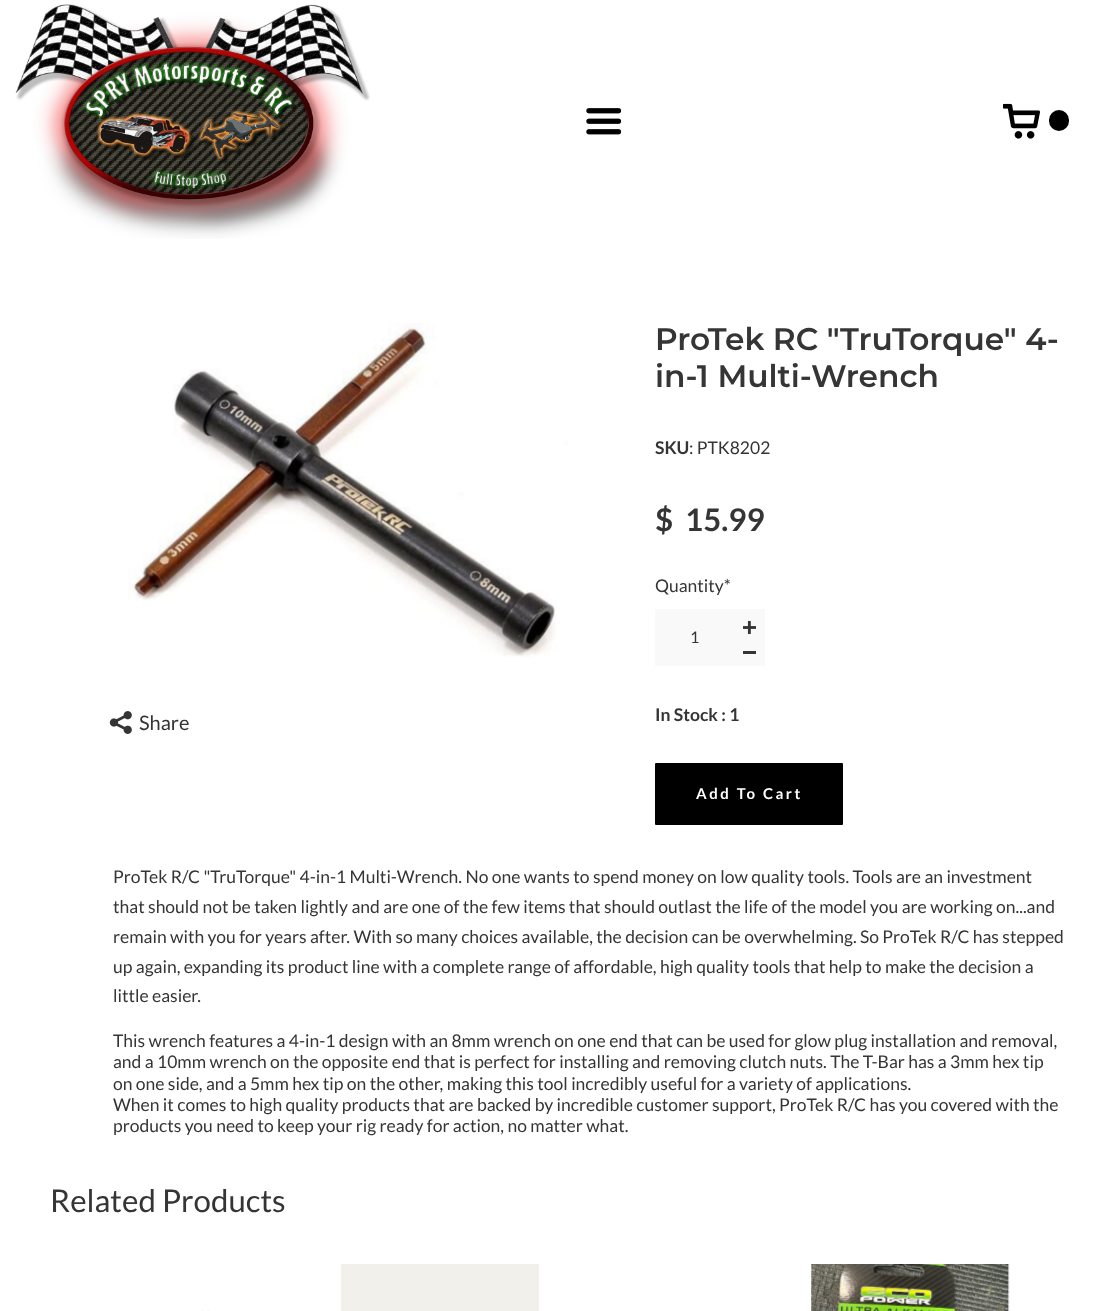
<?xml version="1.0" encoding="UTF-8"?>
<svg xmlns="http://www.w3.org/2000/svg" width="1114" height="1311">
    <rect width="100%" height="100%" fill="#FFFFFF"/>
    <image x="15" y="4" width="355" height="235" href="img_01.png"/>
    <image x="586" y="108" width="35" height="27" href="img_02.png"/>
    <image x="1003" y="103" width="37" height="36" href="img_03.png"/>
    <rect x="1049" y="110" width="20" height="21" rx="10" fill="#000000"/>
    <image x="128" y="323" width="440" height="335" href="img_04.png"/>
    <image x="109" y="711" width="23" height="23" href="img_05.png"/>
    <text x="139" y="730" font-family="Lato" font-size="20" fill="#353535">Share</text>
    <text font-family="Montserrat" font-size="31.25" font-weight="600" fill="#353535">
        <tspan x="655" y="350">ProTek RC "TruTorque" 4-</tspan>
        <tspan x="655" y="387">in-1 Multi-Wrench</tspan>
    </text>
    <text x="655" y="454" font-family="Lato" font-size="17.5" font-weight="700" fill="#353535">SKU</text>
    <text x="689" y="454" font-family="Lato" font-size="17.5" fill="#353535">: PTK8202</text>
    <text x="655" y="531" font-family="Lato" font-size="31.25" font-weight="700" fill="#353535">$</text>
    <text x="685" y="531" font-family="Lato" font-size="31.25" font-weight="700" fill="#353535">15.99</text>
    <text x="655" y="592" font-family="Lato" font-size="17.5" fill="#353535">Quantity*</text>
    <rect x="655" y="609" width="110" height="57" fill="#F9F9F9"/>
    <text x="690" y="643" font-family="Lato" font-size="16" fill="#353535">1</text>
    <image x="743" y="621" width="13" height="13" href="img_06.png"/>
    <rect x="743" y="651" width="13" height="3" fill="#353535"/>
    <text x="655" y="721" font-family="Lato" font-size="17.5" font-weight="700" fill="#353535">In Stock : 1</text>
    <rect x="655" y="763" width="188" height="62" rx="1" fill="#000000"/>
    <text x="696" y="799" font-family="Lato" font-size="15" font-weight="700" letter-spacing="2.5" fill="#FFFFFF">Add To Cart</text>
    <text font-family="Lato" font-size="17.5" fill="#353535">
        <tspan x="113" y="883">ProTek R/C "TruTorque" 4-in-1 Multi-Wrench. No one wants to spend money on low quality tools. Tools are an investment</tspan>
        <tspan x="113" y="913">that should not be taken lightly and are one of the few items that should outlast the life of the model you are working on...and</tspan>
        <tspan x="113" y="943">remain with you for years after. With so many choices available, the decision can be overwhelming. So ProTek R/C has stepped</tspan>
        <tspan x="113" y="973">up again, expanding its product line with a complete range of affordable, high quality tools that help to make the decision a</tspan>
        <tspan x="113" y="1002">little easier.</tspan>
    </text>
    <text font-family="Lato" font-size="17.5" fill="#353535">
        <tspan x="113" y="1047">This wrench features a 4-in-1 design with an 8mm wrench on one end that can be used for glow plug installation and removal,</tspan>
        <tspan x="113" y="1068">and a 10mm wrench on the opposite end that is perfect for installing and removing clutch nuts. The T-Bar has a 3mm hex tip</tspan>
        <tspan x="113" y="1090">on one side, and a 5mm hex tip on the other, making this tool incredibly useful for a variety of applications.</tspan>
        <tspan x="113" y="1111">When it comes to high quality products that are backed by incredible customer support, ProTek R/C has you covered with the</tspan>
        <tspan x="113" y="1132">products you need to keep your rig ready for action, no matter what.</tspan>
    </text>
    <text x="50" y="1212" font-family="Lato" font-size="31.25" fill="#353535">Related Products</text>
    <image x="201" y="1310" width="9" height="1" href="img_07.png"/>
    <rect x="341" y="1264" width="198" height="47" fill="#F1F0EB"/>
    <image x="811" y="1264" width="199" height="47" href="img_08.png"/>
</svg>
